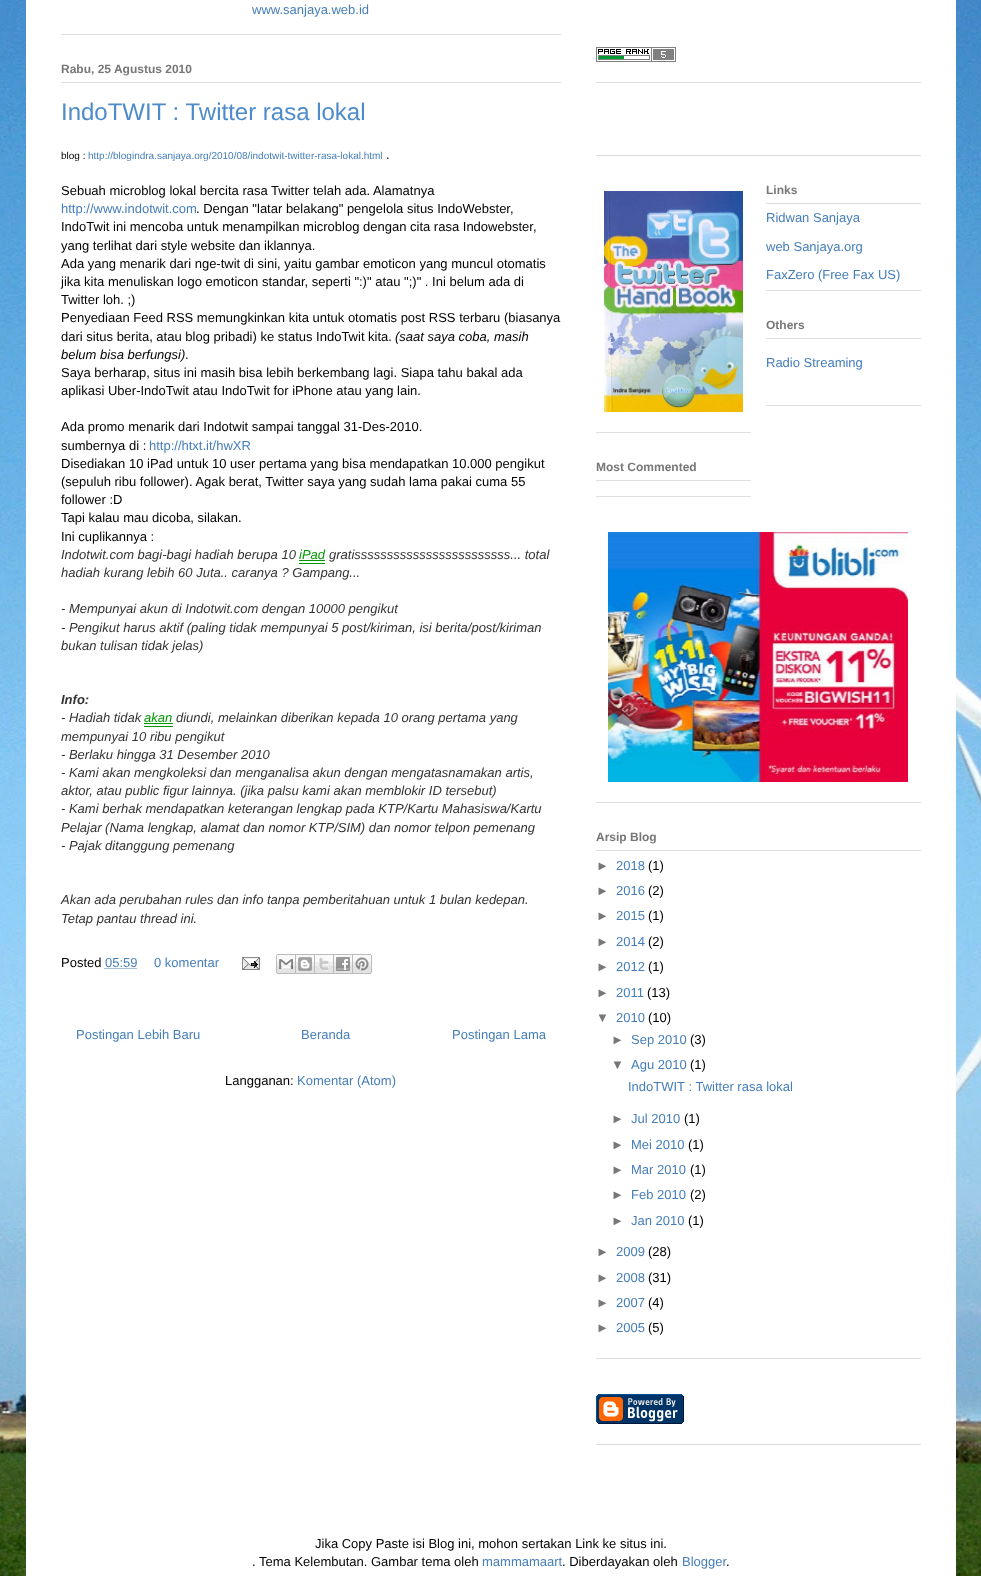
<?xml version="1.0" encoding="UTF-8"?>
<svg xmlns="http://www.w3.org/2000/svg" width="981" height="1576">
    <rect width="100%" height="100%" fill="#FFFFFF"/>
    <image x="0" y="0" width="981" height="1576" href="img_01.png"/>
    <rect x="26" y="0" width="930" height="1576" fill="#FFFFFF"/>
    <rect x="61" y="34" width="500" height="1" fill="#DFDFDF"/>
    <text x="252" y="14" font-family="Liberation Sans" font-size="13" fill="#457EBA">www.sanjaya.web.id</text>
    <rect x="61" y="82" width="500" height="1" fill="#DFDFDF"/>
    <text x="61" y="73" font-family="Liberation Sans" font-size="12" font-weight="700" fill="#777777">Rabu, 25 Agustus 2010</text>
    <text x="61" y="120" font-family="Liberation Sans" font-size="24" fill="#4E8BCB">IndoTWIT : Twitter rasa lokal</text>
    <text x="61" y="159" font-family="Liberation Sans" font-size="10" fill="#000000">blog :</text>
    <text x="88" y="159" font-family="Liberation Sans" font-size="10" fill="#457EBA">http://blogindra.sanjaya.org/2010/08/indotwit-twitter-rasa-lokal.html</text>
    <text x="386" y="159" font-family="Liberation Sans" font-size="13" fill="#000000">.</text>
    <text x="61" y="195" font-family="Liberation Sans" font-size="13" fill="#000000">Sebuah microblog lokal bercita rasa Twitter telah ada. Alamatnya</text>
    <text x="61" y="213" font-family="Liberation Sans" font-size="13" fill="#457EBA">http://www.indotwit.com</text>
    <text x="196" y="213" font-family="Liberation Sans" font-size="13" fill="#000000">. Dengan "latar belakang" pengelola situs IndoWebster,</text>
    <text font-family="Liberation Sans" font-size="13" fill="#000000">
        <tspan x="61" y="231">IndoTwit ini mencoba untuk menampilkan microblog dengan cita rasa Indowebster,</tspan>
        <tspan x="61" y="250">yang terlihat dari style website dan iklannya.</tspan>
        <tspan x="61" y="268">Ada yang menarik dari nge-twit di sini, yaitu gambar emoticon yang muncul otomatis</tspan>
        <tspan x="61" y="286">jika kita menuliskan logo emoticon standar, seperti ":)" atau ";)" . Ini belum ada di</tspan>
        <tspan x="61" y="304">Twitter loh. ;)</tspan>
        <tspan x="61" y="322">Penyediaan Feed RSS memungkinkan kita untuk otomatis post RSS terbaru (biasanya</tspan>
        <tspan x="61" y="341">dari situs berita, atau blog pribadi) ke status IndoTwit kita.</tspan>
    </text>
    <text x="395" y="341" font-family="Liberation Sans" font-size="13" font-style="italic" fill="#000000">(saat saya coba, masih</text>
    <text x="61" y="359" font-family="Liberation Sans" font-size="13" font-style="italic" fill="#000000">belum bisa berfungsi)</text>
    <text x="185" y="359" font-family="Liberation Sans" font-size="13" fill="#000000">.</text>
    <text font-family="Liberation Sans" font-size="13" fill="#000000">
        <tspan x="61" y="377">Saya berharap, situs ini masih bisa lebih berkembang lagi. Siapa tahu bakal ada</tspan>
        <tspan x="61" y="395">aplikasi Uber-IndoTwit atau IndoTwit for iPhone atau yang lain.</tspan>
    </text>
    <text font-family="Liberation Sans" font-size="13" fill="#000000">
        <tspan x="61" y="431">Ada promo menarik dari Indotwit sampai tanggal 31-Des-2010.</tspan>
        <tspan x="61" y="450">sumbernya di :</tspan>
    </text>
    <text x="149" y="450" font-family="Liberation Sans" font-size="13" fill="#457EBA">http://htxt.it/hwXR</text>
    <text font-family="Liberation Sans" font-size="13" fill="#000000">
        <tspan x="61" y="468">Disediakan 10 iPad untuk 10 user pertama yang bisa mendapatkan 10.000 pengikut</tspan>
        <tspan x="61" y="486">(sepuluh ribu follower). Agak berat, Twitter saya yang sudah lama pakai cuma 55</tspan>
        <tspan x="61" y="504">follower :D</tspan>
        <tspan x="61" y="522">Tapi kalau mau dicoba, silakan.</tspan>
        <tspan x="61" y="541">Ini cuplikannya :</tspan>
    </text>
    <text x="61" y="559" font-family="Liberation Sans" font-size="13" font-style="italic" fill="#333333">Indotwit.com bagi-bagi hadiah berupa 10</text>
    <text x="299" y="559" font-family="Liberation Sans" font-size="13" font-style="italic" fill="#009900">iPad</text>
    <rect x="299" y="563" width="26" height="1" fill="#009900"/>
    <rect x="299" y="560" width="26" height="1" fill="#009900"/>
    <text x="329" y="559" font-family="Liberation Sans" font-size="13" font-style="italic" fill="#333333">gratissssssssssssssssssssssss... total</text>
    <text x="61" y="577" font-family="Liberation Sans" font-size="13" font-style="italic" fill="#333333">hadiah kurang lebih 60 Juta.. caranya ? Gampang...</text>
    <text font-family="Liberation Sans" font-size="13" font-style="italic" fill="#333333">
        <tspan x="61" y="613">- Mempunyai akun di Indotwit.com dengan 10000 pengikut</tspan>
        <tspan x="61" y="632">- Pengikut harus aktif (paling tidak mempunyai 5 post/kiriman, isi berita/post/kiriman</tspan>
        <tspan x="61" y="650">bukan tulisan tidak jelas)</tspan>
    </text>
    <text x="61" y="704" font-family="Liberation Sans" font-size="13" font-weight="700" font-style="italic" fill="#333333">Info:</text>
    <text x="61" y="722" font-family="Liberation Sans" font-size="13" font-style="italic" fill="#333333">- Hadiah tidak</text>
    <text x="144" y="722" font-family="Liberation Sans" font-size="13" font-style="italic" fill="#009900">akan</text>
    <rect x="144" y="726" width="29" height="1" fill="#009900"/>
    <rect x="144" y="723" width="29" height="1" fill="#009900"/>
    <text x="176" y="722" font-family="Liberation Sans" font-size="13" font-style="italic" fill="#333333">diundi, melainkan diberikan kepada 10 orang pertama yang</text>
    <text font-family="Liberation Sans" font-size="13" font-style="italic" fill="#333333">
        <tspan x="61" y="741">mempunyai 10 ribu pengikut</tspan>
        <tspan x="61" y="759">- Berlaku hingga 31 Desember 2010</tspan>
        <tspan x="61" y="777">- Kami akan mengkoleksi dan menganalisa akun dengan mengatasnamakan artis,</tspan>
        <tspan x="61" y="795">aktor, atau public figur lainnya. (jika palsu kami akan memblokir ID tersebut)</tspan>
        <tspan x="61" y="813">- Kami berhak mendapatkan keterangan lengkap pada KTP/Kartu Mahasiswa/Kartu</tspan>
        <tspan x="61" y="832">Pelajar (Nama lengkap, alamat dan nomor KTP/SIM) dan nomor telpon pemenang</tspan>
        <tspan x="61" y="850">- Pajak ditanggung pemenang</tspan>
    </text>
    <text font-family="Liberation Sans" font-size="13" font-style="italic" fill="#333333">
        <tspan x="61" y="904">Akan ada perubahan rules dan info tanpa pemberitahuan untuk 1 bulan kedepan.</tspan>
        <tspan x="61" y="923">Tetap pantau thread ini.</tspan>
    </text>
    <text x="61" y="967" font-family="Liberation Sans" font-size="13" fill="#000000">Posted</text>
    <text x="105" y="967" font-family="Liberation Sans" font-size="13" fill="#457EBA">05:59</text>
    <path d="M 104.5 968.5 H 137" fill="none" stroke="#457EBA" stroke-dasharray="1 1"/>
    <text x="154" y="967" font-family="Liberation Sans" font-size="13" fill="#457EBA">0 komentar</text>
    <image x="242" y="957" width="18" height="13" href="img_02.png"/>
    <image x="276" y="954" width="20" height="20" href="img_03.png"/>
    <image x="296" y="954" width="19" height="20" href="img_04.png"/>
    <image x="315" y="954" width="19" height="20" href="img_05.png"/>
    <image x="334" y="954" width="19" height="20" href="img_06.png"/>
    <image x="353" y="954" width="19" height="20" href="img_07.png"/>
    <text x="76" y="1039" font-family="Liberation Sans" font-size="13" fill="#457EBA">Postingan Lebih Baru</text>
    <text x="301" y="1039" font-family="Liberation Sans" font-size="13" fill="#457EBA">Beranda</text>
    <text x="452" y="1039" font-family="Liberation Sans" font-size="13" fill="#457EBA">Postingan Lama</text>
    <text x="225" y="1085" font-family="Liberation Sans" font-size="13" fill="#000000">Langganan:</text>
    <text x="297" y="1085" font-family="Liberation Sans" font-size="13" fill="#457EBA">Komentar (Atom)</text>
    <rect x="596" y="82" width="325" height="1" fill="#DFDFDF"/>
    <image x="596" y="47" width="80" height="15" href="img_08.png"/>
    <rect x="596" y="155" width="325" height="1" fill="#DFDFDF"/>
    <rect x="766" y="290" width="155" height="1" fill="#DFDFDF"/>
    <rect x="766" y="203" width="155" height="1" fill="#DFDFDF"/>
    <text x="766" y="194" font-family="Liberation Sans" font-size="12" font-weight="700" fill="#777777">Links</text>
    <text x="766" y="222" font-family="Liberation Sans" font-size="13" fill="#457EBA">Ridwan Sanjaya</text>
    <text x="766" y="251" font-family="Liberation Sans" font-size="13" fill="#457EBA">web Sanjaya.org</text>
    <text x="766" y="279" font-family="Liberation Sans" font-size="13" fill="#457EBA">FaxZero (Free Fax US)</text>
    <rect x="766" y="405" width="155" height="1" fill="#DFDFDF"/>
    <rect x="766" y="338" width="155" height="1" fill="#DFDFDF"/>
    <text x="766" y="329" font-family="Liberation Sans" font-size="12" font-weight="700" fill="#777777">Others</text>
    <text x="766" y="367" font-family="Liberation Sans" font-size="13" fill="#457EBA">Radio Streaming</text>
    <rect x="596" y="432" width="155" height="1" fill="#DFDFDF"/>
    <image x="604" y="191" width="139" height="221" href="img_09.png"/>
    <rect x="596" y="496" width="155" height="1" fill="#DFDFDF"/>
    <rect x="596" y="480" width="155" height="1" fill="#DFDFDF"/>
    <text x="596" y="471" font-family="Liberation Sans" font-size="12" font-weight="700" fill="#777777">Most Commented</text>
    <rect x="596" y="802" width="325" height="1" fill="#DFDFDF"/>
    <image x="608" y="532" width="300" height="250" href="img_10.png"/>
    <rect x="596" y="1358" width="325" height="1" fill="#DFDFDF"/>
    <rect x="596" y="850" width="325" height="1" fill="#DFDFDF"/>
    <text x="596" y="841" font-family="Liberation Sans" font-size="12" font-weight="700" fill="#777777">Arsip Blog</text>
    <text x="596" y="870" font-family="Liberation Sans" font-size="13" fill="#777777">►</text>
    <text x="616" y="870" font-family="Liberation Sans" font-size="13" fill="#457EBA">2018</text>
    <text x="648" y="870" font-family="Liberation Sans" font-size="13" fill="#000000">(1)</text>
    <text x="596" y="895" font-family="Liberation Sans" font-size="13" fill="#777777">►</text>
    <text x="616" y="895" font-family="Liberation Sans" font-size="13" fill="#457EBA">2016</text>
    <text x="648" y="895" font-family="Liberation Sans" font-size="13" fill="#000000">(2)</text>
    <text x="596" y="920" font-family="Liberation Sans" font-size="13" fill="#777777">►</text>
    <text x="616" y="920" font-family="Liberation Sans" font-size="13" fill="#457EBA">2015</text>
    <text x="648" y="920" font-family="Liberation Sans" font-size="13" fill="#000000">(1)</text>
    <text x="596" y="946" font-family="Liberation Sans" font-size="13" fill="#777777">►</text>
    <text x="616" y="946" font-family="Liberation Sans" font-size="13" fill="#457EBA">2014</text>
    <text x="648" y="946" font-family="Liberation Sans" font-size="13" fill="#000000">(2)</text>
    <text x="596" y="971" font-family="Liberation Sans" font-size="13" fill="#777777">►</text>
    <text x="616" y="971" font-family="Liberation Sans" font-size="13" fill="#457EBA">2012</text>
    <text x="648" y="971" font-family="Liberation Sans" font-size="13" fill="#000000">(1)</text>
    <text x="596" y="997" font-family="Liberation Sans" font-size="13" fill="#777777">►</text>
    <text x="616" y="997" font-family="Liberation Sans" font-size="13" fill="#457EBA">2011</text>
    <text x="647" y="997" font-family="Liberation Sans" font-size="13" fill="#000000">(13)</text>
    <text x="596" y="1022" font-family="Liberation Sans" font-size="13" fill="#777777">▼</text>
    <text x="616" y="1022" font-family="Liberation Sans" font-size="13" fill="#457EBA">2010</text>
    <text x="648" y="1022" font-family="Liberation Sans" font-size="13" fill="#000000">(10)</text>
    <text x="611" y="1044" font-family="Liberation Sans" font-size="13" fill="#777777">►</text>
    <text x="631" y="1044" font-family="Liberation Sans" font-size="13" fill="#457EBA">Sep 2010</text>
    <text x="690" y="1044" font-family="Liberation Sans" font-size="13" fill="#000000">(3)</text>
    <text x="611" y="1069" font-family="Liberation Sans" font-size="13" fill="#777777">▼</text>
    <text x="631" y="1069" font-family="Liberation Sans" font-size="13" fill="#457EBA">Agu 2010</text>
    <text x="690" y="1069" font-family="Liberation Sans" font-size="13" fill="#000000">(1)</text>
    <text x="628" y="1091" font-family="Liberation Sans" font-size="13" fill="#457EBA">IndoTWIT : Twitter rasa lokal</text>
    <text x="611" y="1123" font-family="Liberation Sans" font-size="13" fill="#777777">►</text>
    <text x="631" y="1123" font-family="Liberation Sans" font-size="13" fill="#457EBA">Jul 2010</text>
    <text x="684" y="1123" font-family="Liberation Sans" font-size="13" fill="#000000">(1)</text>
    <text x="611" y="1149" font-family="Liberation Sans" font-size="13" fill="#777777">►</text>
    <text x="631" y="1149" font-family="Liberation Sans" font-size="13" fill="#457EBA">Mei 2010</text>
    <text x="688" y="1149" font-family="Liberation Sans" font-size="13" fill="#000000">(1)</text>
    <text x="611" y="1174" font-family="Liberation Sans" font-size="13" fill="#777777">►</text>
    <text x="631" y="1174" font-family="Liberation Sans" font-size="13" fill="#457EBA">Mar 2010</text>
    <text x="690" y="1174" font-family="Liberation Sans" font-size="13" fill="#000000">(1)</text>
    <text x="611" y="1199" font-family="Liberation Sans" font-size="13" fill="#777777">►</text>
    <text x="631" y="1199" font-family="Liberation Sans" font-size="13" fill="#457EBA">Feb 2010</text>
    <text x="690" y="1199" font-family="Liberation Sans" font-size="13" fill="#000000">(2)</text>
    <text x="611" y="1225" font-family="Liberation Sans" font-size="13" fill="#777777">►</text>
    <text x="631" y="1225" font-family="Liberation Sans" font-size="13" fill="#457EBA">Jan 2010</text>
    <text x="688" y="1225" font-family="Liberation Sans" font-size="13" fill="#000000">(1)</text>
    <text x="596" y="1256" font-family="Liberation Sans" font-size="13" fill="#777777">►</text>
    <text x="616" y="1256" font-family="Liberation Sans" font-size="13" fill="#457EBA">2009</text>
    <text x="648" y="1256" font-family="Liberation Sans" font-size="13" fill="#000000">(28)</text>
    <text x="596" y="1282" font-family="Liberation Sans" font-size="13" fill="#777777">►</text>
    <text x="616" y="1282" font-family="Liberation Sans" font-size="13" fill="#457EBA">2008</text>
    <text x="648" y="1282" font-family="Liberation Sans" font-size="13" fill="#000000">(31)</text>
    <text x="596" y="1307" font-family="Liberation Sans" font-size="13" fill="#777777">►</text>
    <text x="616" y="1307" font-family="Liberation Sans" font-size="13" fill="#457EBA">2007</text>
    <text x="648" y="1307" font-family="Liberation Sans" font-size="13" fill="#000000">(4)</text>
    <text x="596" y="1332" font-family="Liberation Sans" font-size="13" fill="#777777">►</text>
    <text x="616" y="1332" font-family="Liberation Sans" font-size="13" fill="#457EBA">2005</text>
    <text x="648" y="1332" font-family="Liberation Sans" font-size="13" fill="#000000">(5)</text>
    <rect x="596" y="1444" width="325" height="1" fill="#DFDFDF"/>
    <image x="596" y="1394" width="88" height="30" href="img_11.png"/>
    <text x="315" y="1548" font-family="Liberation Sans" font-size="13" fill="#000000">Jika Copy Paste isi Blog ini, mohon sertakan Link ke situs ini.</text>
    <text x="252" y="1566" font-family="Liberation Sans" font-size="13" fill="#000000">. Tema Kelembutan. Gambar tema oleh</text>
    <text x="482" y="1566" font-family="Liberation Sans" font-size="13" fill="#457EBA">mammamaart</text>
    <text x="562" y="1566" font-family="Liberation Sans" font-size="13" fill="#000000">. Diberdayakan oleh</text>
    <text x="682" y="1566" font-family="Liberation Sans" font-size="13" fill="#457EBA">Blogger</text>
    <text x="726" y="1566" font-family="Liberation Sans" font-size="13" fill="#000000">.</text>
</svg>
